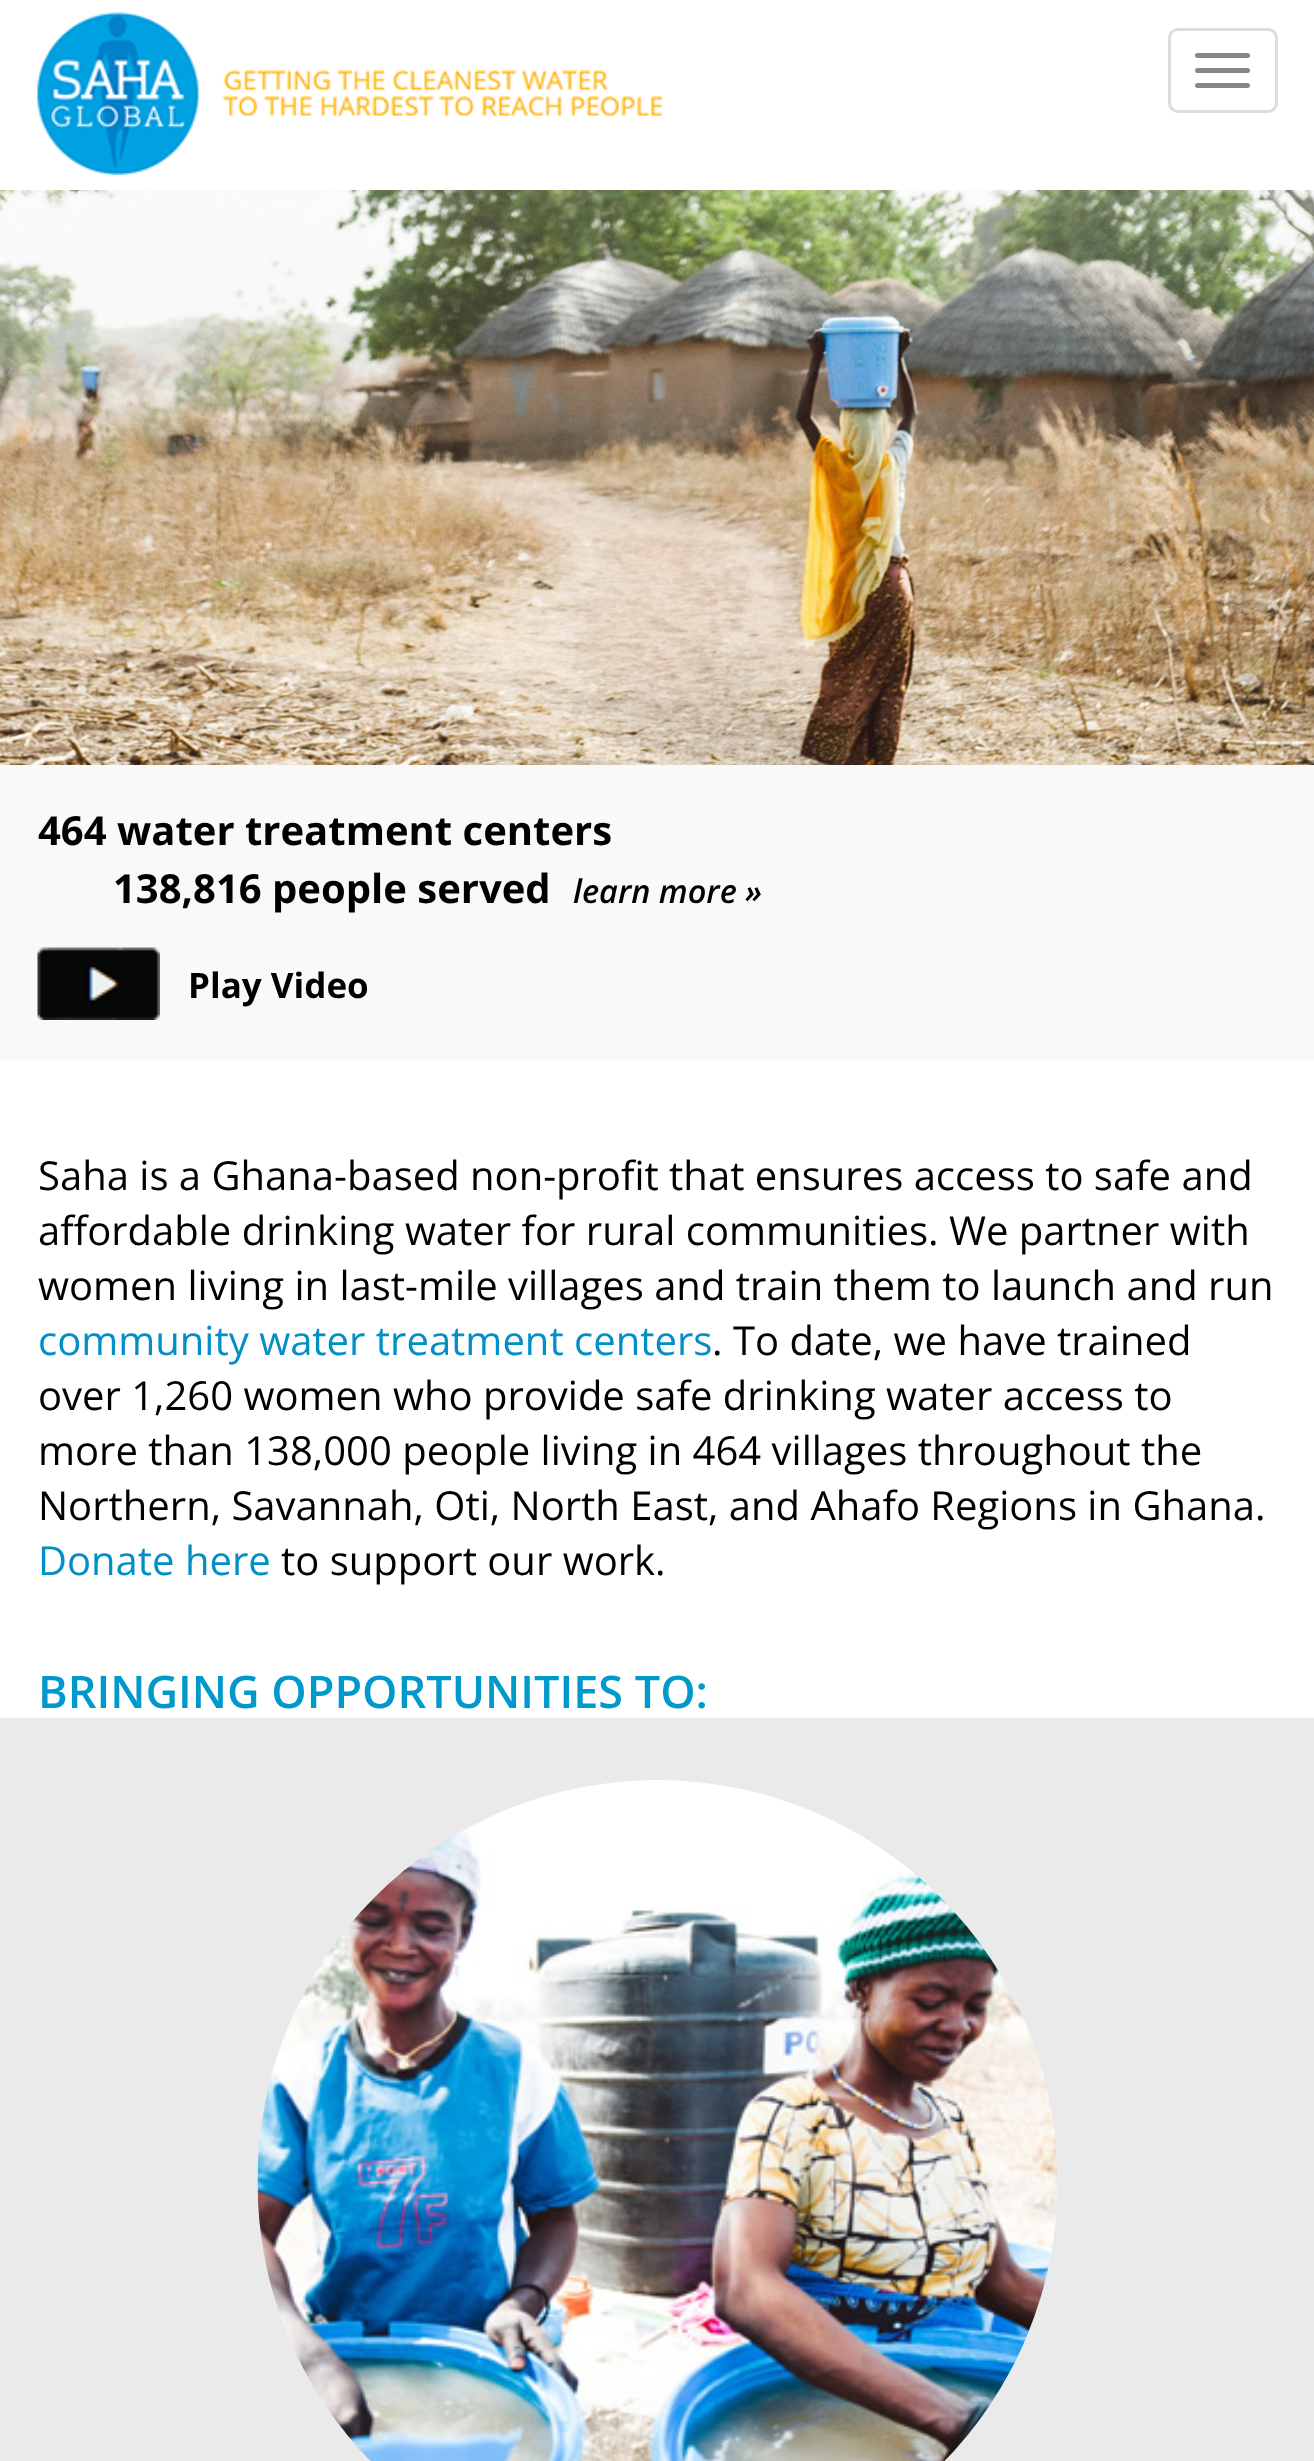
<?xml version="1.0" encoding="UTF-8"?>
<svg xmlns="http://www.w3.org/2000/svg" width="1314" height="2461">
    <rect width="100%" height="100%" fill="#FFFFFF"/>
    <image x="37" y="12" width="626" height="163" href="img_01.png"/>
    <rect x="1169.5" y="29.5" width="107" height="82" rx="8.5" fill="none" stroke="#DDDDDD" stroke-width="3"/>
    <rect x="1195" y="53" width="55" height="5" rx="2.5" fill="#888888"/>
    <rect x="1195" y="68" width="55" height="5" rx="2.5" fill="#888888"/>
    <rect x="1195" y="83" width="55" height="5" rx="2.5" fill="#888888"/>
    <image x="0" y="190" width="1314" height="575" href="img_02.png"/>
    <rect x="0" y="765" width="1314" height="295" fill="#F9F9F9"/>
    <text x="38" y="845" font-family="Open Sans" font-size="40" font-weight="700" fill="#000000">464 water treatment centers</text>
    <text x="113" y="903" font-family="Open Sans" font-size="40" font-weight="700" fill="#000000">138,816 people served</text>
    <text x="573" y="903" font-family="Open Sans" font-size="32.5" font-weight="600" font-style="italic" fill="#000000">learn more »</text>
    <image x="37" y="947" width="123" height="73" href="img_03.png"/>
    <text x="188" y="998" font-family="Open Sans" font-size="35" font-weight="700" fill="#000000">Play Video</text>
    <text font-family="Open Sans" font-size="40" fill="#000000">
        <tspan x="38" y="1190">Saha is a Ghana-based non-profit that ensures access to safe and</tspan>
        <tspan x="38" y="1245">affordable drinking water for rural communities. We partner with</tspan>
        <tspan x="38" y="1300">women living in last-mile villages and train them to launch and run</tspan>
    </text>
    <text x="38" y="1355" font-family="Open Sans" font-size="40" fill="#028EC6">community water treatment centers</text>
    <text x="712" y="1355" font-family="Open Sans" font-size="40" fill="#000000">. To date, we have trained</text>
    <text font-family="Open Sans" font-size="40" fill="#000000">
        <tspan x="38" y="1410">over 1,260 women who provide safe drinking water access to</tspan>
        <tspan x="38" y="1465">more than 138,000 people living in 464 villages throughout the</tspan>
        <tspan x="38" y="1520">Northern, Savannah, Oti, North East, and Ahafo Regions in Ghana.</tspan>
    </text>
    <text x="38" y="1575" font-family="Open Sans" font-size="40" fill="#028EC6">Donate here</text>
    <text x="281" y="1575" font-family="Open Sans" font-size="40" fill="#000000">to support our work.</text>
    <text x="38" y="1708" font-family="Open Sans" font-size="45" font-weight="600" fill="#0099CC">BRINGING OPPORTUNITIES TO:</text>
    <rect x="0" y="1718" width="1314" height="743" fill="#EAEAEA"/>
    <image x="257" y="1780" width="801" height="681" href="img_04.png"/>
</svg>
